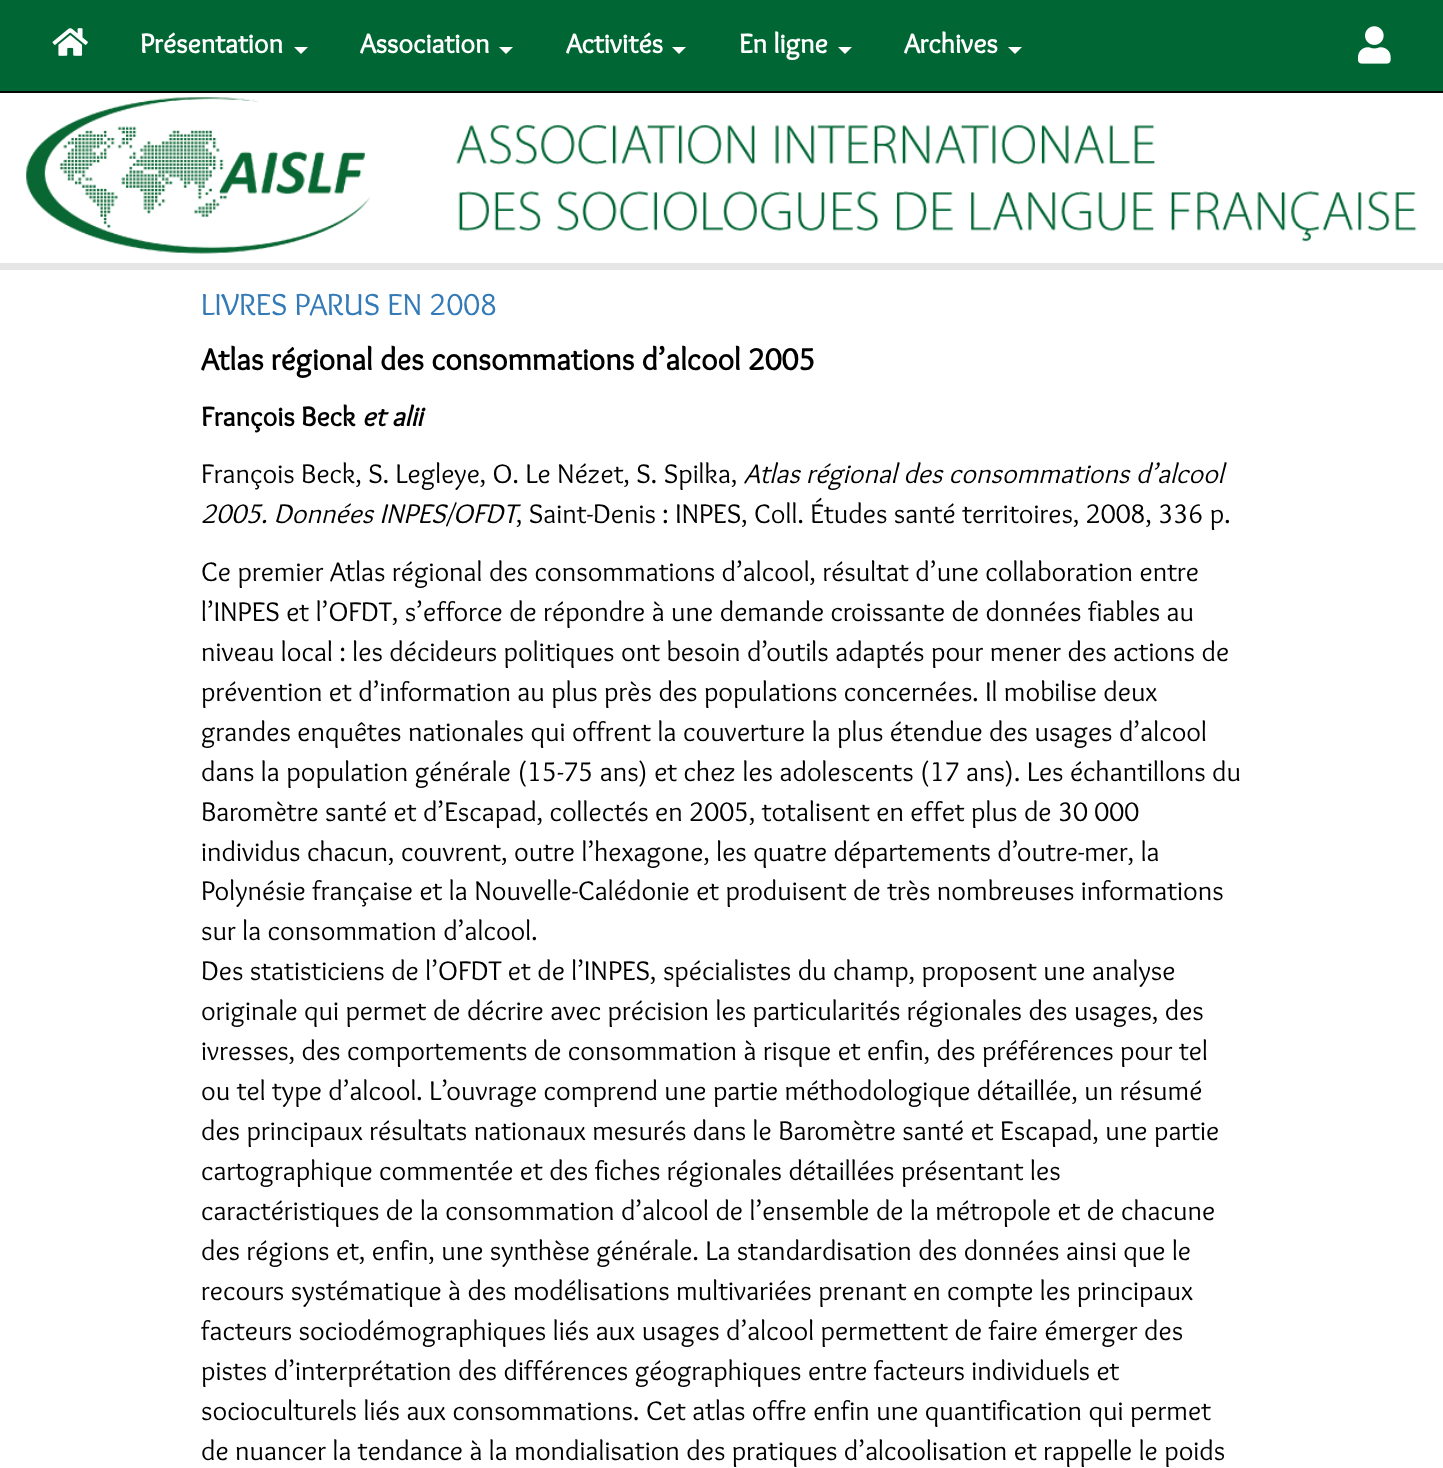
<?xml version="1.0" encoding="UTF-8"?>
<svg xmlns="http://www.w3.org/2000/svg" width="1443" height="1468">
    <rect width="100%" height="100%" fill="#FFFFFF"/>
    <rect x="0" y="0" width="1443" height="91" fill="#006633"/>
    <rect x="0" y="91" width="1443" height="2" fill="#080808"/>
    <image x="52" y="28" width="36" height="28" href="img_01.png"/>
    <text x="140" y="53" font-family="Overlock" font-size="28" font-weight="700" fill="#FFFFFF">Présentation</text>
    <path d="M 294 47 H 308 L 301 54 Z" fill="#FFFFFF"/>
    <text x="360" y="53" font-family="Overlock" font-size="28" font-weight="700" fill="#FFFFFF">Association</text>
    <path d="M 499 47 H 513 L 506 54 Z" fill="#FFFFFF"/>
    <text x="566" y="53" font-family="Overlock" font-size="28" font-weight="700" fill="#FFFFFF">Activités</text>
    <path d="M 672 47 H 686 L 679 54 Z" fill="#FFFFFF"/>
    <text x="739" y="53" font-family="Overlock" font-size="28" font-weight="700" fill="#FFFFFF">En ligne</text>
    <path d="M 838 47 H 852 L 845 54 Z" fill="#FFFFFF"/>
    <text x="904" y="53" font-family="Overlock" font-size="28" font-weight="700" fill="#FFFFFF">Archives</text>
    <path d="M 1008 47 H 1022 L 1015 54 Z" fill="#FFFFFF"/>
    <image x="1358" y="26" width="33" height="38" href="img_02.png"/>
    <image x="26" y="97" width="1391" height="157" href="img_03.png"/>
    <rect x="0" y="263" width="1443" height="7" fill="#E6E6E6"/>
    <text x="201" y="315" font-family="Overlock" font-size="31.5" fill="#337AB7">LIVRES PARUS EN 2008</text>
    <text x="201" y="370" font-family="Overlock" font-size="31.5" font-weight="700" fill="#000000">Atlas régional des consommations d’alcool 2005</text>
    <text x="201" y="426" font-family="Overlock" font-size="28" font-weight="700" fill="#000000">François Beck</text>
    <text x="362" y="426" font-family="Overlock" font-size="28" font-weight="700" font-style="italic" fill="#000000">et alii</text>
    <text x="201" y="483" font-family="Overlock" font-size="28" fill="#000000">François Beck, S. Legleye, O. Le Nézet, S. Spilka,</text>
    <text x="744" y="483" font-family="Overlock" font-size="28" font-style="italic" fill="#000000">Atlas régional des consommations d’alcool</text>
    <text x="201" y="523" font-family="Overlock" font-size="28" font-style="italic" fill="#000000">2005. Données INPES/OFDT</text>
    <text x="516" y="523" font-family="Overlock" font-size="28" fill="#000000">, Saint-Denis : INPES, Coll. Études santé territoires, 2008, 336 p.</text>
    <text font-family="Overlock" font-size="28" fill="#000000">
        <tspan x="201" y="581">Ce premier Atlas régional des consommations d’alcool, résultat d’une collaboration entre</tspan>
        <tspan x="201" y="621">l’INPES et l’OFDT, s’efforce de répondre à une demande croissante de données fiables au</tspan>
        <tspan x="201" y="661">niveau local : les décideurs politiques ont besoin d’outils adaptés pour mener des actions de</tspan>
        <tspan x="201" y="701">prévention et d’information au plus près des populations concernées. Il mobilise deux</tspan>
        <tspan x="201" y="741">grandes enquêtes nationales qui offrent la couverture la plus étendue des usages d’alcool</tspan>
        <tspan x="201" y="781">dans la population générale (15-75 ans) et chez les adolescents (17 ans). Les échantillons du</tspan>
        <tspan x="201" y="821">Baromètre santé et d’Escapad, collectés en 2005, totalisent en effet plus de 30 000</tspan>
        <tspan x="201" y="861">individus chacun, couvrent, outre l’hexagone, les quatre départements d’outre-mer, la</tspan>
        <tspan x="201" y="900">Polynésie française et la Nouvelle-Calédonie et produisent de très nombreuses informations</tspan>
        <tspan x="201" y="940">sur la consommation d’alcool.</tspan>
        <tspan x="201" y="980">Des statisticiens de l’OFDT et de l’INPES, spécialistes du champ, proposent une analyse</tspan>
        <tspan x="201" y="1020">originale qui permet de décrire avec précision les particularités régionales des usages, des</tspan>
        <tspan x="201" y="1060">ivresses, des comportements de consommation à risque et enfin, des préférences pour tel</tspan>
        <tspan x="201" y="1100">ou tel type d’alcool. L’ouvrage comprend une partie méthodologique détaillée, un résumé</tspan>
        <tspan x="201" y="1140">des principaux résultats nationaux mesurés dans le Baromètre santé et Escapad, une partie</tspan>
        <tspan x="201" y="1180">cartographique commentée et des fiches régionales détaillées présentant les</tspan>
        <tspan x="201" y="1220">caractéristiques de la consommation d’alcool de l’ensemble de la métropole et de chacune</tspan>
        <tspan x="201" y="1260">des régions et, enfin, une synthèse générale. La standardisation des données ainsi que le</tspan>
        <tspan x="201" y="1300">recours systématique à des modélisations multivariées prenant en compte les principaux</tspan>
        <tspan x="201" y="1340">facteurs sociodémographiques liés aux usages d’alcool permettent de faire émerger des</tspan>
        <tspan x="201" y="1380">pistes d’interprétation des différences géographiques entre facteurs individuels et</tspan>
        <tspan x="201" y="1420">socioculturels liés aux consommations. Cet atlas offre enfin une quantification qui permet</tspan>
        <tspan x="201" y="1460">de nuancer la tendance à la mondialisation des pratiques d’alcoolisation et rappelle le poids</tspan>
    </text>
</svg>
